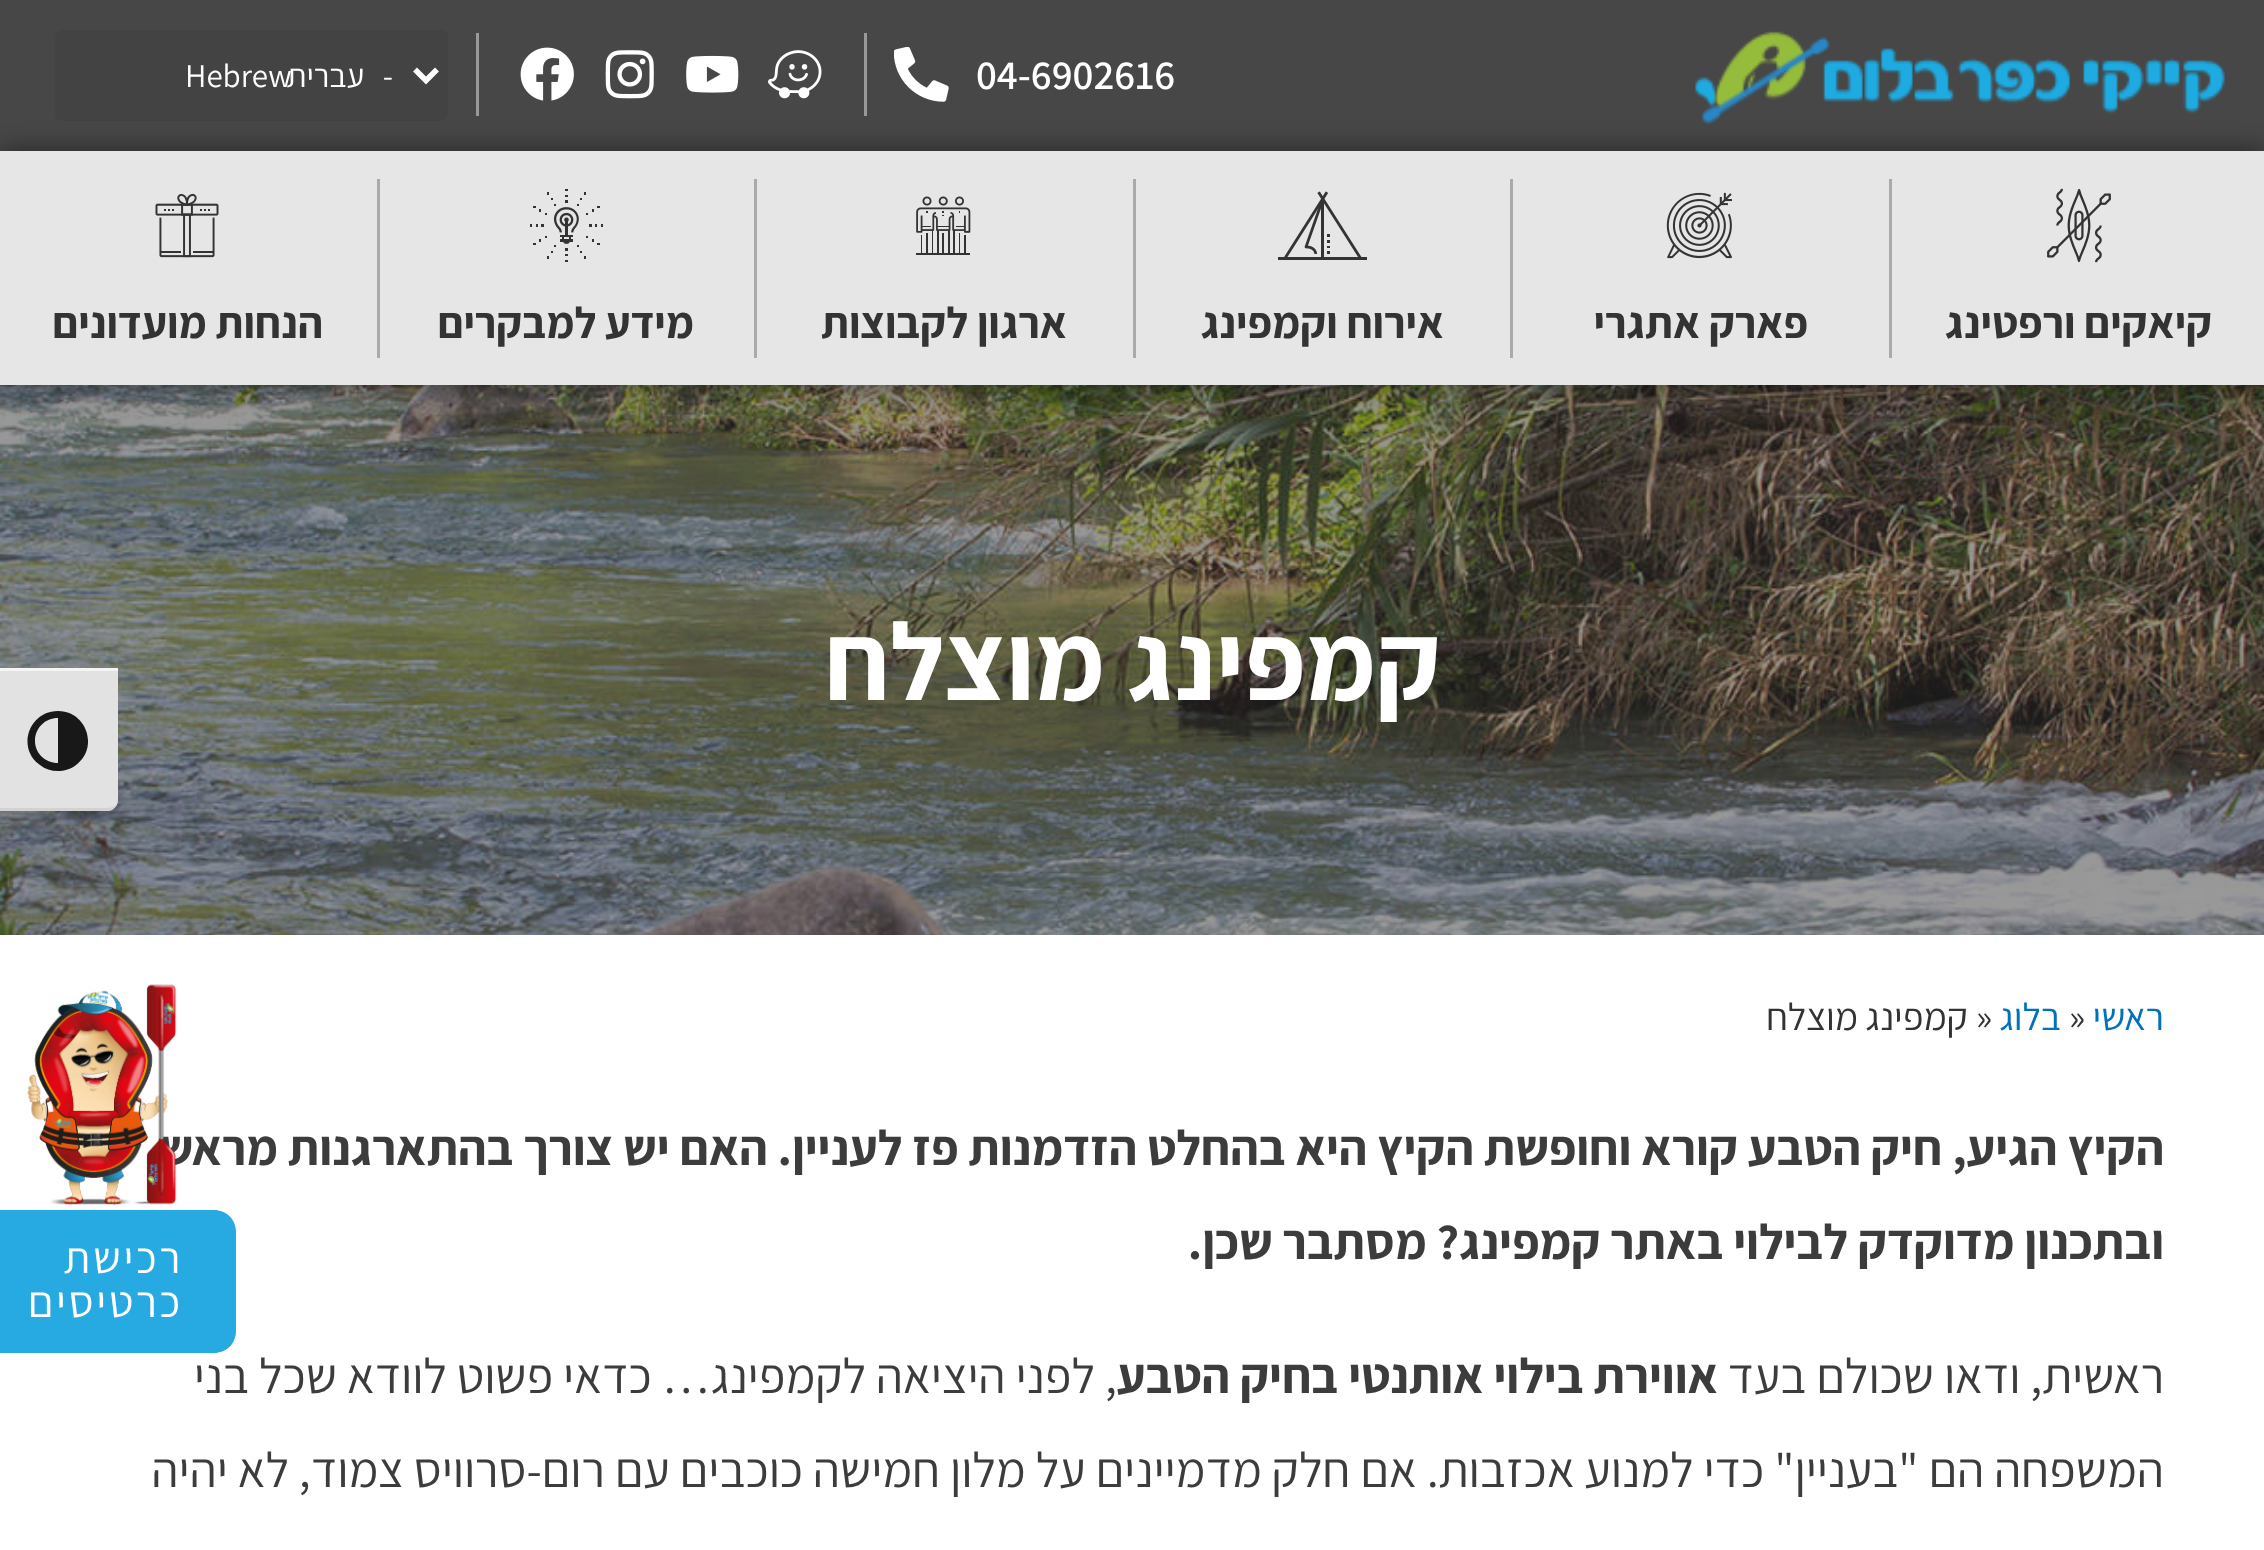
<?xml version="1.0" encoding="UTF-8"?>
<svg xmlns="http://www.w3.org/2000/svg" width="2264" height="1550">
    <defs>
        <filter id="blur1" x="-50%" y="-200%" width="200%" height="500%"><feGaussianBlur stdDeviation="14"/></filter>
    </defs>
    <rect width="100%" height="100%" fill="#FFFFFF"/>
    <rect x="0" y="0" width="2264" height="151" fill="#474747"/>
    <image x="1695" y="31" width="530" height="93" href="img_01.png"/>
    <text x="976" y="89" font-family="Assistant" font-size="41.25" font-weight="600" fill="#FFFFFF">04-6902616</text>
    <image x="894" y="47" width="55" height="55" href="img_02.png"/>
    <rect x="864" y="33" width="3" height="83" fill="#999999"/>
    <rect x="476" y="33" width="3" height="83" fill="#999999"/>
    <image x="768" y="50" width="54" height="49" href="img_03.png"/>
    <image x="686" y="55" width="53" height="38" href="img_04.png"/>
    <image x="605" y="50" width="49" height="49" href="img_05.png"/>
    <image x="520" y="47" width="54" height="54" href="img_06.png"/>
    <rect x="55" y="30" width="393" height="91" rx="8" fill="#434343"/>
    <path d="M 415 69.5 L 426 80.5 L 437 69.5" fill="none" stroke="#FFFFFF" stroke-width="5.5"/>
    <text x="185" y="87" font-family="Assistant" font-size="33" fill="#FFFFFF">Hebrew</text>
    <text x="393" y="87" word-spacing="12" font-family="Assistant" font-size="33" direction="rtl" fill="#FFFFFF">- עברית</text>
    <image x="0" y="385" width="2264" height="550" href="img_13.png"/>
    <rect x="0" y="151" width="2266" height="234" fill="#000000" fill-opacity="0.5" filter="url(#blur1)"/>
    <rect x="0" y="151" width="2264" height="234" fill="#E6E6E6"/>
    <rect x="1889" y="179" width="3" height="179" fill="#AAAAAA"/>
    <image x="2047" y="188" width="64" height="75" href="img_07.png"/>
    <text x="2212" y="338" font-family="Assistant" font-size="44" font-weight="700" direction="rtl" fill="#333333">קיאקים ורפטינג</text>
    <rect x="1510" y="179" width="3" height="179" fill="#AAAAAA"/>
    <image x="1666" y="192" width="66" height="67" href="img_08.png"/>
    <text x="1808" y="338" font-family="Assistant" font-size="44" font-weight="700" direction="rtl" fill="#333333">פארק אתגרי</text>
    <rect x="1133" y="179" width="3" height="179" fill="#AAAAAA"/>
    <image x="1278" y="191" width="89" height="69" href="img_09.png"/>
    <text x="1444" y="338" font-family="Assistant" font-size="44" font-weight="700" direction="rtl" fill="#333333">אירוח וקמפינג</text>
    <rect x="754" y="179" width="3" height="179" fill="#AAAAAA"/>
    <image x="916" y="196" width="55" height="59" href="img_10.png"/>
    <text x="1067" y="338" font-family="Assistant" font-size="44" font-weight="700" direction="rtl" fill="#333333">ארגון לקבוצות</text>
    <rect x="377" y="179" width="3" height="179" fill="#AAAAAA"/>
    <image x="530" y="189" width="73" height="73" href="img_11.png"/>
    <text x="694" y="338" font-family="Assistant" font-size="44" font-weight="700" direction="rtl" fill="#333333">מידע למבקרים</text>
    <image x="155" y="193" width="64" height="65" href="img_12.png"/>
    <text x="323" y="338" font-family="Assistant" font-size="44" font-weight="700" direction="rtl" fill="#333333">הנחות מועדונים</text>
    <text x="1441" y="700" font-family="Assistant" font-size="110" font-weight="700" direction="rtl" fill="#FFFFFF">קמפינג מוצלח</text>
    <text x="2164" y="1030" font-family="Assistant" font-size="38.5" direction="rtl" fill="#0071BC">ראשי</text>
    <text x="2069" y="1030" font-family="Assistant" font-size="38.5" fill="#333333">»</text>
    <text x="2061" y="1030" font-family="Assistant" font-size="38.5" direction="rtl" fill="#0071BC">בלוג</text>
    <text x="1976" y="1030" font-family="Assistant" font-size="38.5" fill="#333333">»</text>
    <text x="1968" y="1030" font-family="Assistant" font-size="38.5" direction="rtl" fill="#333333">קמפינג מוצלח</text>
    <text font-family="Assistant" font-size="49.5" font-weight="700" direction="rtl" fill="#3C3C3C">
        <tspan x="2164" y="1165">הקיץ הגיע, חיק הטבע קורא וחופשת הקיץ היא בהחלט הזדמנות פז לעניין. האם יש צורך בהתארגנות מראש</tspan>
        <tspan x="2164" y="1259">ובתכנון מדוקדק לבילוי באתר קמפינג? מסתבר שכן.</tspan>
    </text>
    <text x="2164" y="1393" font-family="Assistant" font-size="49.5" direction="rtl" fill="#3C3C3C">ראשית, ודאו שכולם בעד</text>
    <text x="1718" y="1393" font-family="Assistant" font-size="49.5" font-weight="700" direction="rtl" fill="#3C3C3C">אווירת בילוי אותנטי בחיק הטבע</text>
    <text x="1117" y="1393" font-family="Assistant" font-size="49.5" direction="rtl" fill="#3C3C3C">, לפני היציאה לקמפינג… כדאי פשוט לוודא שכל בני</text>
    <text x="2164" y="1487" font-family="Assistant" font-size="49.5" direction="rtl" fill="#3C3C3C">המשפחה הם "בעניין" כדי למנוע אכזבות. אם חלק מדמיינים על מלון חמישה כוכבים עם רום-סרוויס צמוד, לא יהיה</text>
    <path d="M 0 668 H 118 V 800 C 118 806 113 811 107 811 H 0 Z" fill="#E2E2E2"/>
    <rect x="0" y="668" width="118" height="3" fill="#F5F5F5"/>
    <path d="M 107 811 C 113 811 118 806 118 800 C 118 805 113 808 107 808 H 0 V 811 Z" fill="#D2D2D2"/>
    <path d="M 58 711 C 29 711 16 748 40 765 C 45 769 51 771 58 771 C 64 771 71 769 76 765 C 99 748 87 711 58 711 Z M 35 741 C 35 728 45 718 58 718 V 763 C 45 763 35 753 35 741 Z" fill="#181818"/>
    <path d="M 0 1210 H 215 C 227 1210 237 1220 237 1232 V 1331 C 237 1343 227 1353 215 1353 H 0 Z" fill="#27A9E1"/>
    <path d="M 0 1204 H 214 C 230 1204 242 1217 242 1232 V 1331 C 242 1346 230 1358 214 1358 H 0 Z M 0 1210 H 214 C 227 1210 236 1220 236 1232 V 1331 C 236 1343 227 1353 214 1353 H 0 Z" fill="#FFFFFF" fill-rule="evenodd"/>
    <image x="27" y="984" width="150" height="222" href="img_14.png"/>
    <text font-family="Assistant" font-size="44" letter-spacing="2.75" direction="rtl" fill="#FFFFFF">
        <tspan x="183" y="1273">רכישת</tspan>
        <tspan x="183" y="1317">כרטיסים</tspan>
    </text>
</svg>
